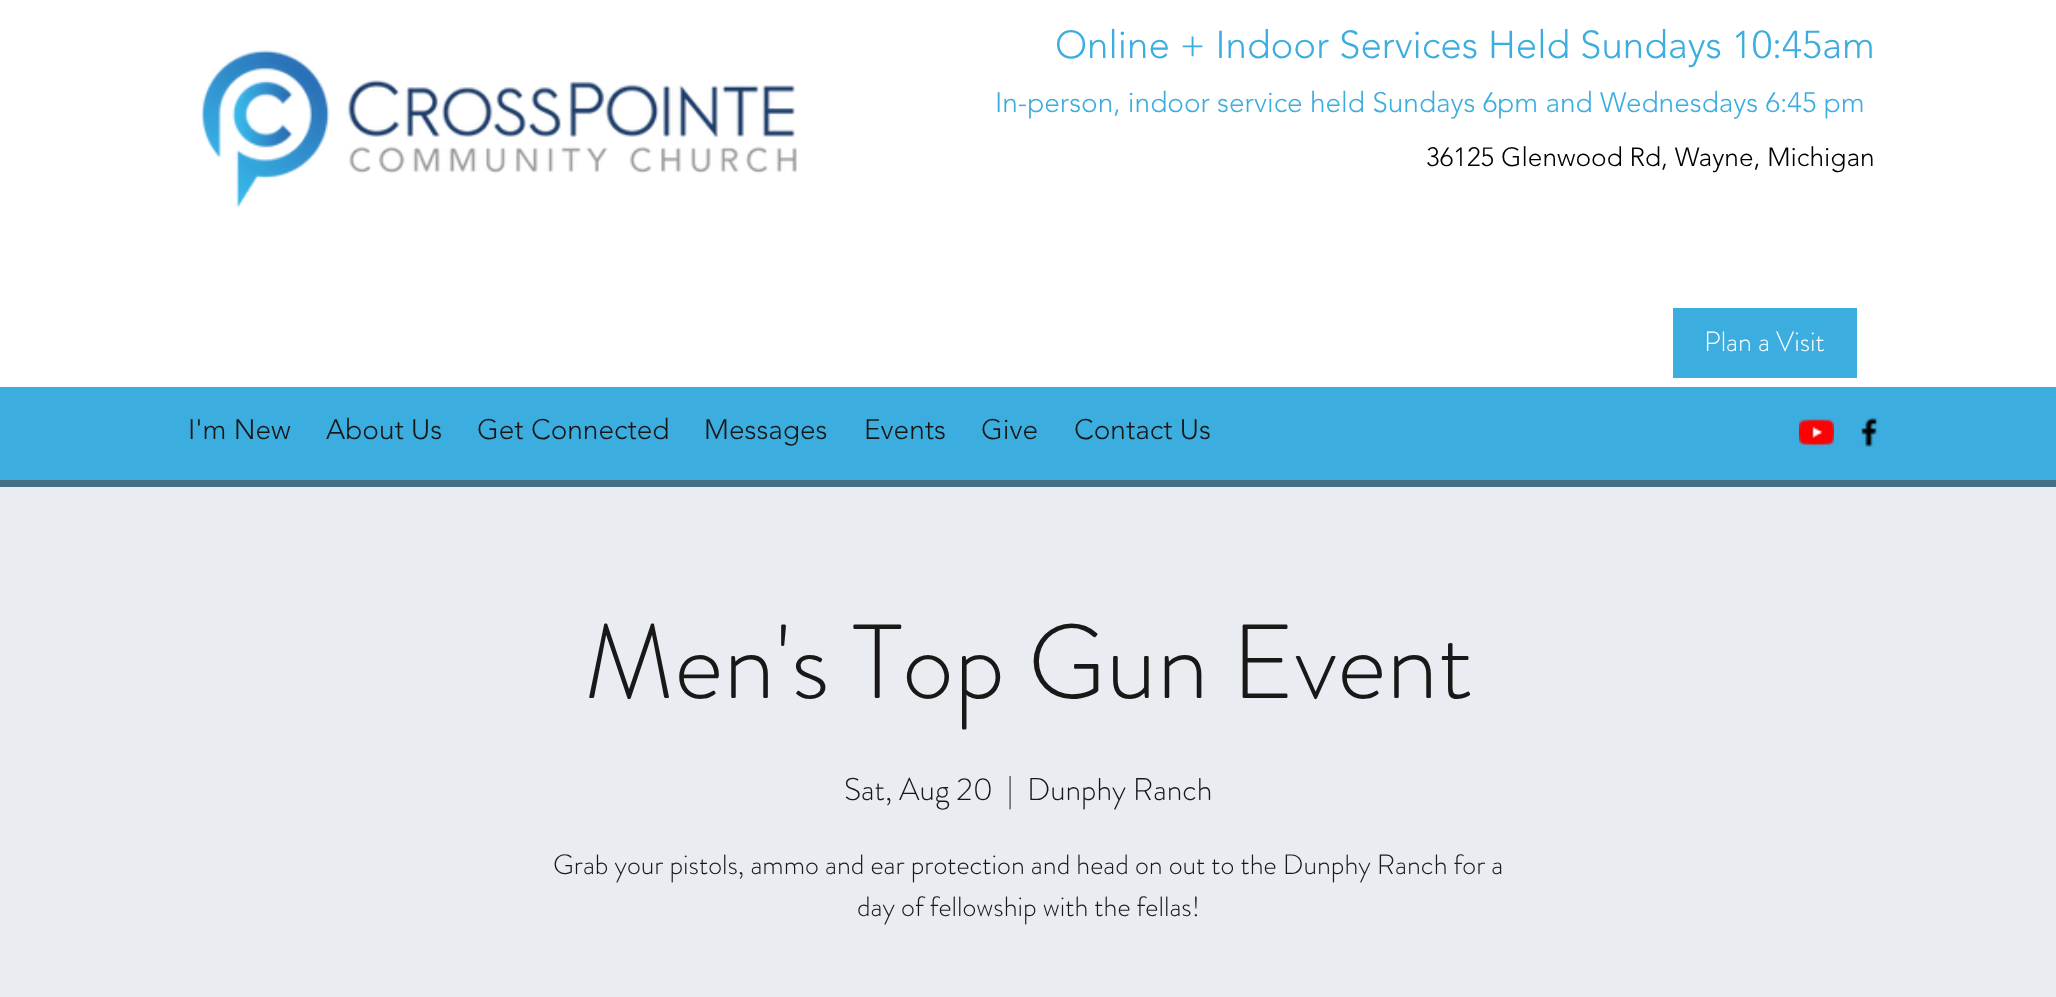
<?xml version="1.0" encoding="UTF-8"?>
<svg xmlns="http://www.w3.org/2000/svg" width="2056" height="997">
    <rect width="100%" height="100%" fill="#FFFFFF"/>
    <image x="201" y="50" width="596" height="157" href="img_01.png"/>
    <text x="1055" y="58" font-family="'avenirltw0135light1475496'" font-size="38.5" font-weight="300" fill="#3CADDF">Online + Indoor Services Held Sundays 10:45am</text>
    <text x="995" y="112" font-family="'avenirltw0135light1475496'" font-size="28" font-weight="300" fill="#3CADDF">In-person, indoor service held Sundays 6pm and Wednesdays 6:45 pm</text>
    <text x="1426" y="166" font-family="'avenirltw0135light1475496'" font-size="26.25" font-weight="300" fill="#000000">36125 Glenwood Rd, Wayne, Michigan</text>
    <rect x="1673" y="308" width="184" height="70" fill="#3CADDF"/>
    <text x="1704" y="351" font-family="'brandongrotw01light'" font-size="28" font-weight="300" fill="#FFFFFF">Plan a Visit</text>
    <rect x="0" y="387" width="2056" height="93" fill="#3CADDF"/>
    <text x="188" y="439" font-family="'avenirltw0135light1475496'" font-size="28" font-weight="300" fill="#181818">I'm New</text>
    <text x="326" y="439" font-family="'avenirltw0135light1475496'" font-size="28" font-weight="300" fill="#181818">About Us</text>
    <text x="477" y="439" font-family="'avenirltw0135light1475496'" font-size="28" font-weight="300" fill="#181818">Get Connected</text>
    <text x="704" y="439" font-family="'avenirltw0135light1475496'" font-size="28" font-weight="300" fill="#181818">Messages</text>
    <text x="864" y="439" font-family="'avenirltw0135light1475496'" font-size="28" font-weight="300" fill="#181818">Events</text>
    <text x="981" y="439" font-family="'avenirltw0135light1475496'" font-size="28" font-weight="300" fill="#181818">Give</text>
    <text x="1074" y="439" font-family="'avenirltw0135light1475496'" font-size="28" font-weight="300" fill="#181818">Contact Us</text>
    <image x="1799" y="418" width="35" height="28" href="img_02.png"/>
    <image x="1861" y="417" width="17" height="30" href="img_03.png"/>
    <rect x="0" y="480" width="2056" height="7" fill="#446F85"/>
    <rect x="0" y="487" width="2056" height="510" fill="#E9ECF0"/>
    <text x="584" y="698" font-family="'brandongrotw01light'" font-size="105" font-weight="300" fill="#181818">Men's Top Gun Event</text>
    <text x="844" y="800" font-family="'brandongrotw01light'" font-size="31.5" font-weight="300" fill="#181818">Sat, Aug 20</text>
    <text x="1007" y="800" font-family="'brandongrotw01light'" font-size="31.5" font-weight="300" fill="#181818">|</text>
    <text x="1027" y="800" font-family="'brandongrotw01light'" font-size="31.5" font-weight="300" fill="#181818">Dunphy Ranch</text>
    <text x="553" y="874" font-family="'brandongrotw01light'" font-size="28" font-weight="300" fill="#181818">Grab your pistols, ammo and ear protection and head on out to the Dunphy Ranch for a</text>
    <text x="857" y="916" font-family="'brandongrotw01light'" font-size="28" font-weight="300" fill="#181818">day of fellowship with the fellas!</text>
</svg>
